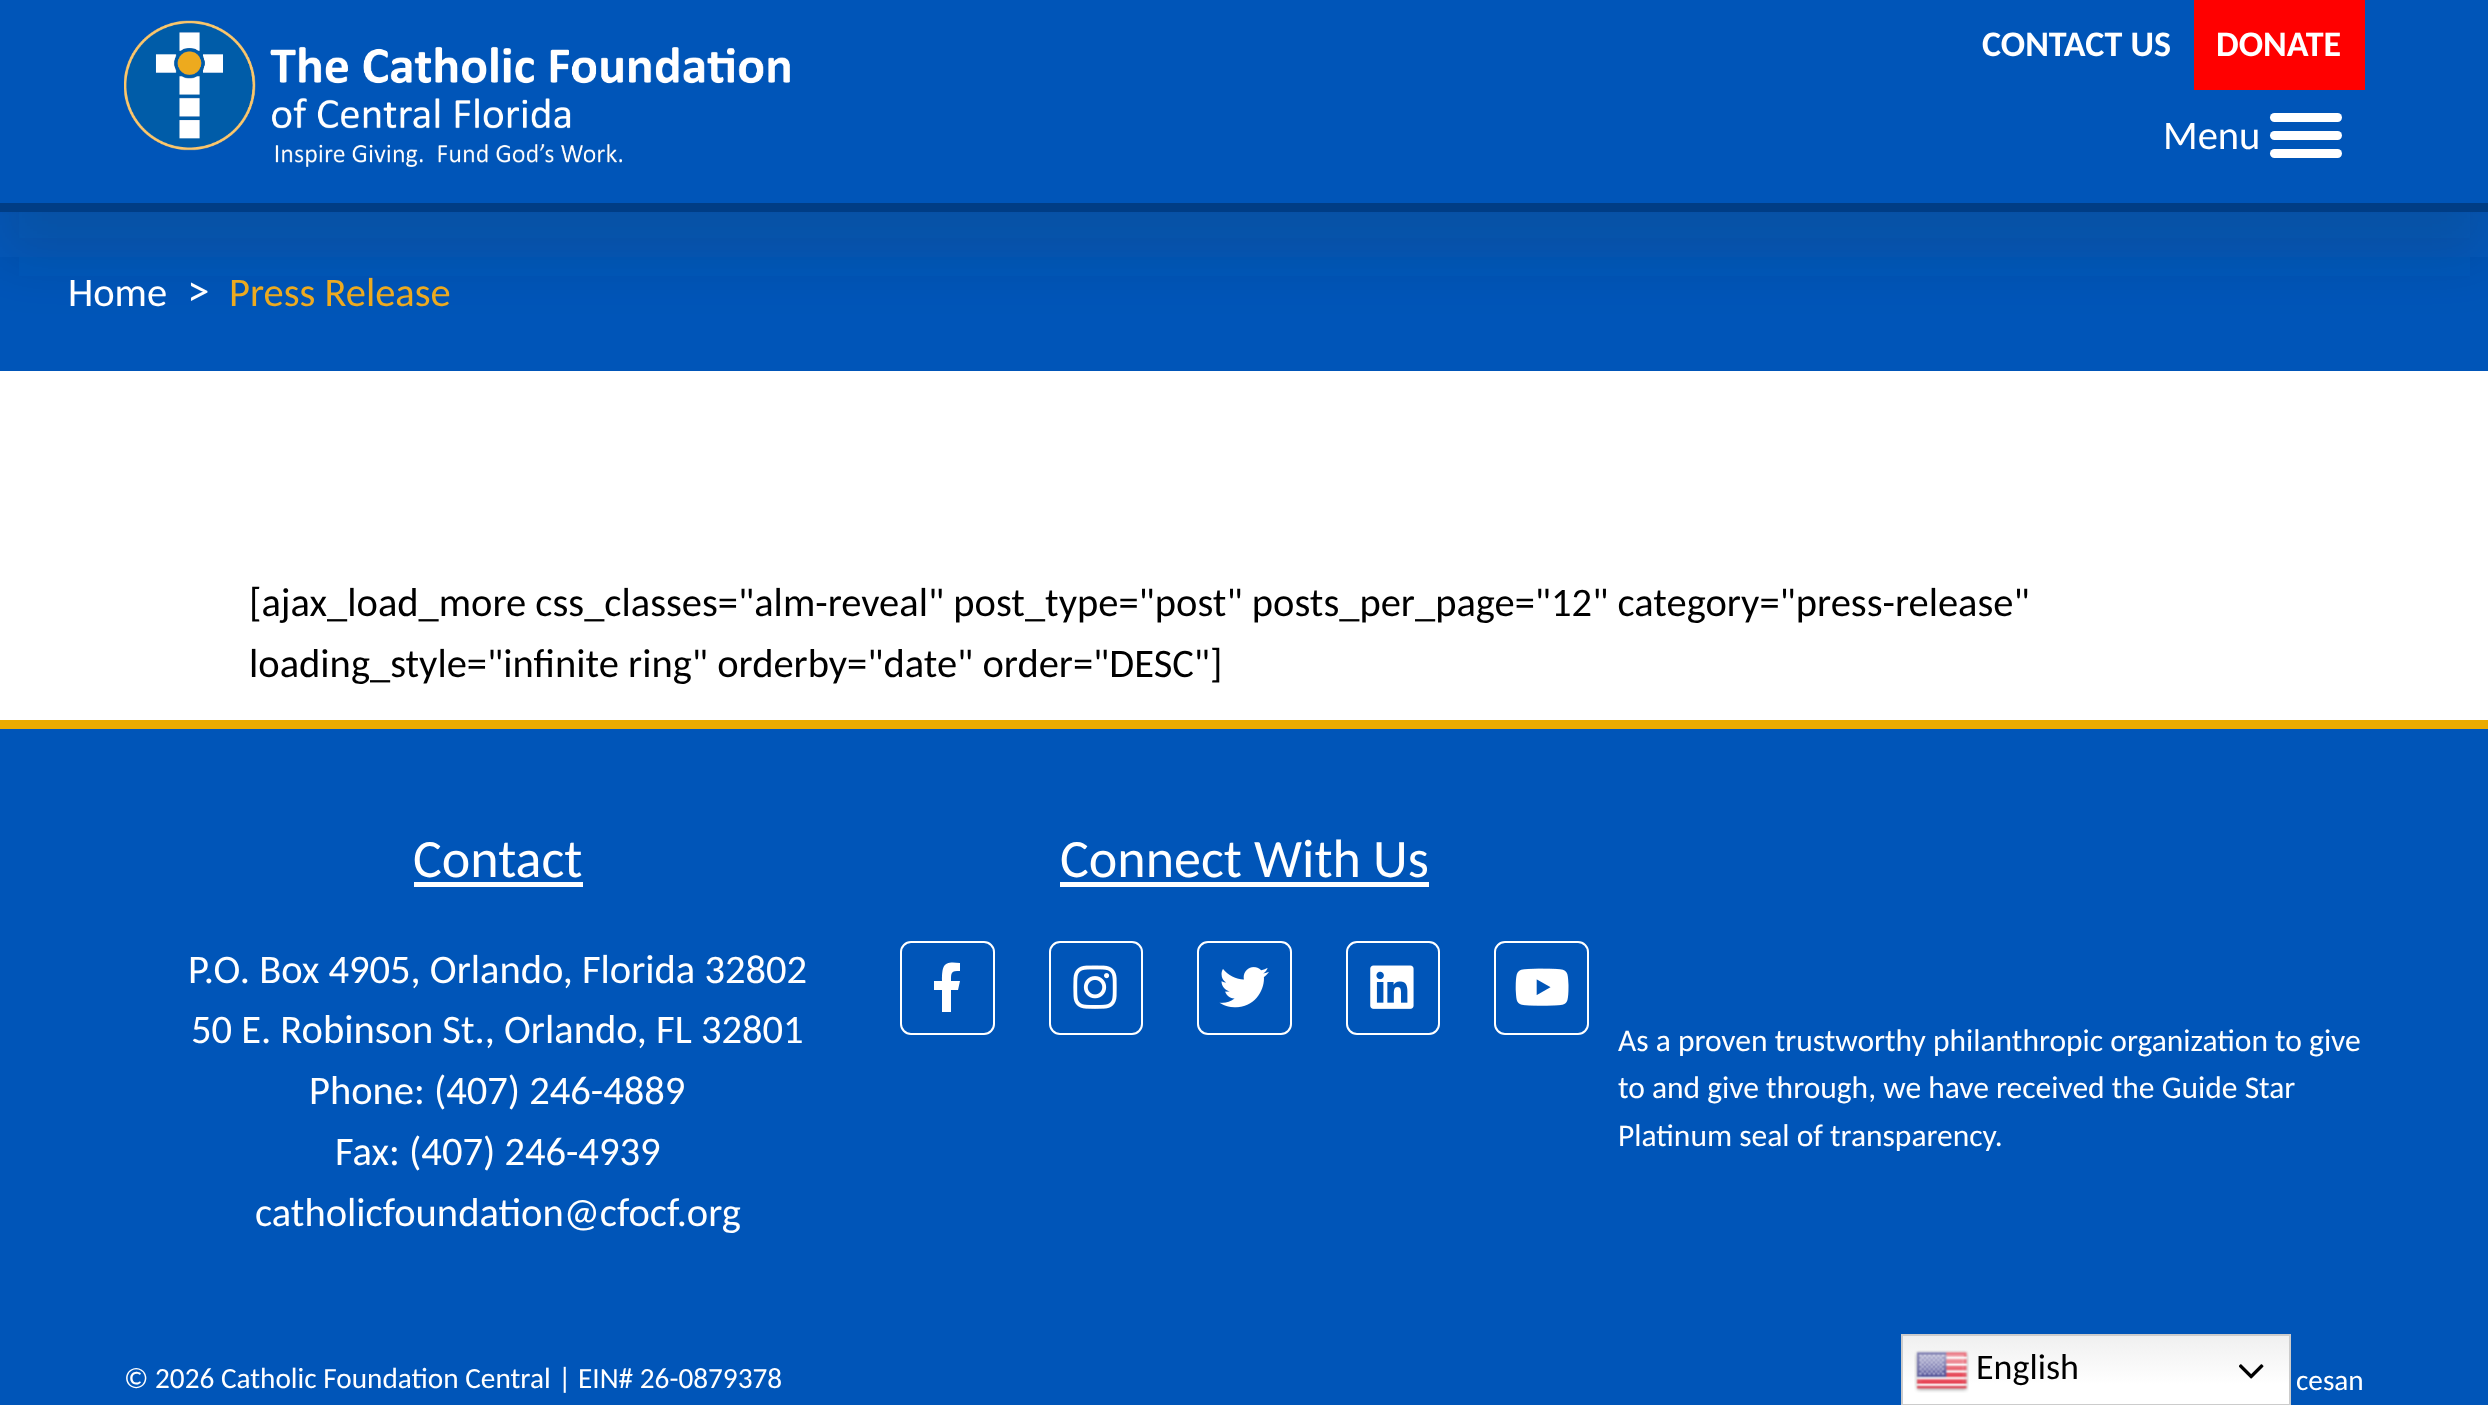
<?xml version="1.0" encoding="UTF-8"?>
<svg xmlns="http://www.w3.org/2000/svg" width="2488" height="1405">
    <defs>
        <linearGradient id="g1" gradientUnits="userSpaceOnUse" x1="1244" y1="-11" x2="1244" y2="214"><stop offset="0" stop-color="#002A5C"/><stop offset="1" stop-color="#0054B8"/></linearGradient>
        <filter id="blur1" x="-50%" y="-200%" width="200%" height="500%"><feGaussianBlur stdDeviation="28"/></filter>
        <linearGradient id="g2" gradientUnits="userSpaceOnUse" x1="2096" y1="1334" x2="2096" y2="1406"><stop offset="0" stop-color="#EFEFEF"/><stop offset="0.7" stop-color="#FFFFFF"/></linearGradient>
    </defs>
    <rect width="100%" height="100%" fill="#FFFFFF"/>
    <rect x="0" y="212" width="2488" height="2" fill="url(#g1)"/>
    <rect x="0" y="214" width="2488" height="157" fill="#0055B8"/>
    <rect x="0" y="45" width="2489" height="212" fill="#293D47" fill-opacity="0.16" filter="url(#blur1)"/>
    <rect x="0" y="0" width="2488" height="203" fill="#0055B8"/>
    <rect x="0" y="203" width="2488" height="9" fill="#003D85"/>
    <image x="124" y="20" width="666" height="147" href="img_01.png"/>
    <text x="1982" y="56" font-family="Carlito" font-size="36" font-weight="700" fill="#FFFFFF">CONTACT US</text>
    <rect x="2194" y="0" width="171" height="90" fill="#FF0000"/>
    <text x="2216" y="56" font-family="Carlito" font-size="36" font-weight="700" fill="#FFFFFF">DONATE</text>
    <text x="2163" y="149" font-family="Carlito" font-size="40.5" fill="#FFFFFF">Menu</text>
    <rect x="2270" y="113" width="72" height="9" rx="4.5" fill="#FFFFFF"/>
    <rect x="2270" y="131" width="72" height="9" rx="4.5" fill="#FFFFFF"/>
    <rect x="2270" y="149" width="72" height="9" rx="4.5" fill="#FFFFFF"/>
    <text x="68" y="306" font-family="Carlito" font-size="40.5" fill="#FFFFFF">Home</text>
    <text x="187" y="306" font-family="Carlito" font-size="45" fill="#FFFFFF">&gt;</text>
    <text x="229" y="306" font-family="Carlito" font-size="40.5" fill="#ECAA20">Press Release</text>
    <text font-family="Carlito" font-size="40.5" fill="#000000">
        <tspan x="249" y="616">[ajax_load_more css_classes="alm-reveal" post_type="post" posts_per_page="12" category="press-release"</tspan>
        <tspan x="249" y="677">loading_style="infinite ring" orderby="date" order="DESC"]</tspan>
    </text>
    <rect x="0" y="729" width="2488" height="676" fill="#0055B8"/>
    <rect x="0" y="720" width="2488" height="9" fill="#EBAB00"/>
    <text x="413" y="877" font-family="Carlito" font-size="54" fill="#FFFFFF">Contact</text>
    <rect x="414" y="882" width="169" height="5" fill="#FFFFFF"/>
    <text x="188" y="983" font-family="Carlito" font-size="40.5" fill="#FFFFFF">P.O. Box 4905, Orlando, Florida 32802</text>
    <text x="191" y="1043" font-family="Carlito" font-size="40.5" fill="#FFFFFF">50 E. Robinson St., Orlando, FL 32801</text>
    <text x="309" y="1104" font-family="Carlito" font-size="40.5" fill="#FFFFFF">Phone: (407) 246-4889</text>
    <text x="335" y="1165" font-family="Carlito" font-size="40.5" fill="#FFFFFF">Fax: (407) 246-4939</text>
    <text x="255" y="1226" font-family="Carlito" font-size="40.5" fill="#FFFFFF">catholicfoundation@cfocf.org</text>
    <text x="1060" y="877" font-family="Carlito" font-size="54" fill="#FFFFFF">Connect With Us</text>
    <rect x="1060" y="882" width="369" height="5" fill="#FFFFFF"/>
    <rect x="901" y="942" width="93" height="92" rx="10" fill="none" stroke="#FFFFFF" stroke-width="2"/>
    <path d="M 958 990 H 951 V 1012 H 942 V 990 H 934 V 981 H 942 C 942 964 944 961 960 963 V 971 C 951 971 951 972 951 981 H 960 Z" fill="#FFFFFF"/>
    <rect x="1050" y="942" width="92" height="92" rx="10" fill="none" stroke="#FFFFFF" stroke-width="2"/>
    <image x="1073" y="965" width="44" height="44" href="img_02.png"/>
    <rect x="1198" y="942" width="93" height="92" rx="10" fill="none" stroke="#FFFFFF" stroke-width="2"/>
    <image x="1219" y="967" width="50" height="41" href="img_03.png"/>
    <rect x="1347" y="942" width="92" height="92" rx="10" fill="none" stroke="#FFFFFF" stroke-width="2"/>
    <image x="1370" y="965" width="44" height="44" href="img_04.png"/>
    <rect x="1495" y="942" width="93" height="92" rx="10" fill="none" stroke="#FFFFFF" stroke-width="2"/>
    <image x="1515" y="968" width="54" height="38" href="img_05.png"/>
    <text font-family="Carlito" font-size="31.5" fill="#FFFFFF">
        <tspan x="1618" y="1051">As a proven trustworthy philanthropic organization to give</tspan>
        <tspan x="1618" y="1098">to and give through, we have received the Guide Star</tspan>
        <tspan x="1618" y="1146">Platinum seal of transparency.</tspan>
    </text>
    <text x="124" y="1388" font-family="Carlito" font-size="29.25" fill="#FFFFFF">© 2026 Catholic Foundation Central</text>
    <text x="558" y="1388" font-family="Carlito" font-size="29.25" fill="#FFFFFF">| EIN# 26-0879378</text>
    <text x="2296" y="1390" font-family="Carlito" font-size="29.25" fill="#FFFFFF">cesan</text>
    <rect x="1903" y="1336" width="386" height="68" fill="url(#g2)"/>
    <rect x="1902" y="1335" width="388" height="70" fill="none" stroke="#CCCCCC" stroke-width="2"/>
    <image x="1914" y="1350" width="55" height="43" href="img_06.png"/>
    <text x="1976" y="1379" font-family="Carlito" font-size="36" fill="#000000">English</text>
    <image x="2239" y="1364" width="25" height="15" href="img_07.png"/>
</svg>
